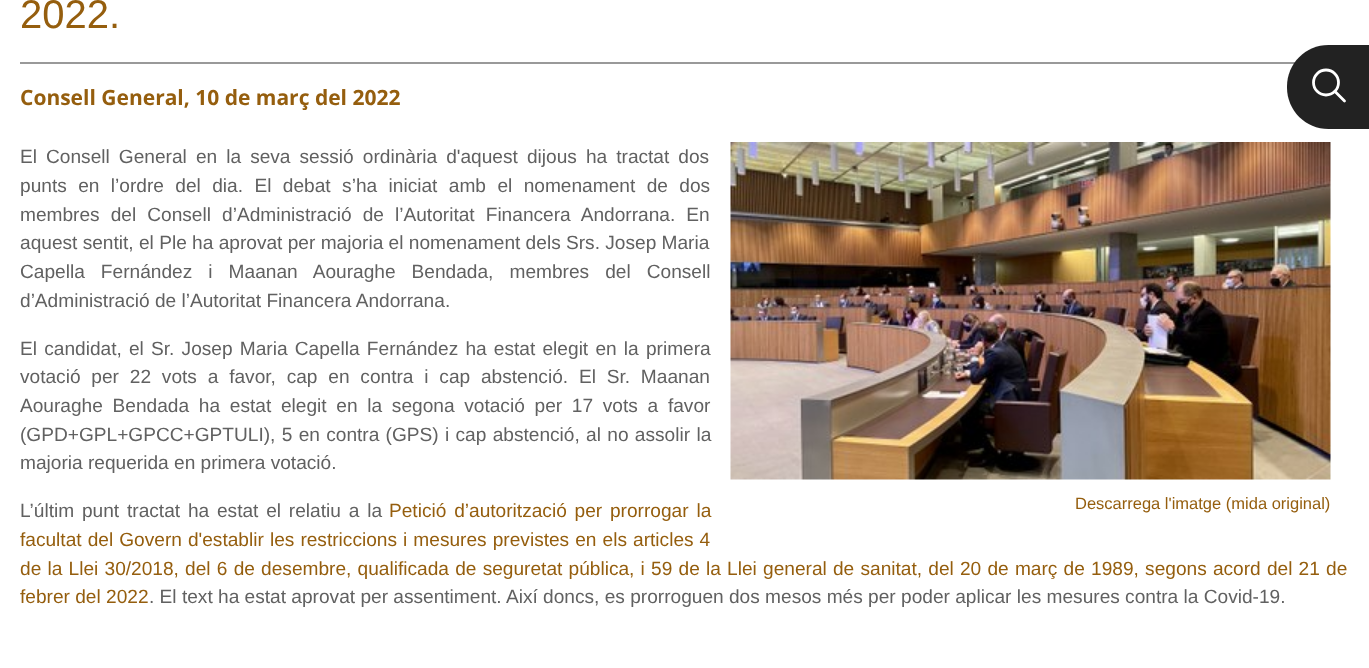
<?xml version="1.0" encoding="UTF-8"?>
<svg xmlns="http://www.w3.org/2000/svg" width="1369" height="668">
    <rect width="100%" height="100%" fill="#FFFFFF"/>
    <rect x="20" y="62" width="1275" height="2" fill="#999999"/>
    <text x="20" y="28" font-family="Liberation Sans" font-size="40" fill="#955E0E">2022.</text>
    <text x="20" y="105" font-family="Open Sans" font-size="21" font-weight="700" fill="#955E0E">Consell General, 10 de març del 2022</text>
    <text font-family="Liberation Sans" font-size="19.12" fill="#616161">
        <tspan x="20" y="163" word-spacing="3.75">El Consell General en la seva sessió ordinària d'aquest dijous ha tractat dos</tspan>
        <tspan x="20" y="192" word-spacing="6.1">punts en l’ordre del dia. El debat s’ha iniciat amb el nomenament de dos</tspan>
        <tspan x="20" y="221" word-spacing="5.75">membres del Consell d’Administració de l’Autoritat Financera Andorrana. En</tspan>
        <tspan x="20" y="249">aquest sentit, el Ple ha aprovat per majoria el nomenament dels Srs. Josep Maria</tspan>
        <tspan x="20" y="278" word-spacing="10.75">Capella Fernández i Maanan Aouraghe Bendada, membres del Consell</tspan>
        <tspan x="20" y="307">d’Administració de l’Autoritat Financera Andorrana.</tspan>
    </text>
    <text font-family="Liberation Sans" font-size="19.12" fill="#616161">
        <tspan x="20" y="355" word-spacing="1.9">El candidat, el Sr. Josep Maria Capella Fernández ha estat elegit en la primera</tspan>
        <tspan x="20" y="383" word-spacing="5.5">votació per 22 vots a favor, cap en contra i cap abstenció. El Sr. Maanan</tspan>
        <tspan x="20" y="412" word-spacing="4.4">Aouraghe Bendada ha estat elegit en la segona votació per 17 vots a favor</tspan>
        <tspan x="20" y="441" word-spacing="1">(GPD+GPL+GPCC+GPTULI), 5 en contra (GPS) i cap abstenció, al no assolir la</tspan>
        <tspan x="20" y="469">majoria requerida en primera votació.</tspan>
    </text>
    <text x="20" y="517" word-spacing="2.5" font-family="Liberation Sans" font-size="19.12" fill="#616161">L’últim punt tractat ha estat el relatiu a la</text>
    <text x="389" y="517" word-spacing="2.5" font-family="Liberation Sans" font-size="19.12" fill="#955E0E">Petició d’autorització per prorrogar la</text>
    <text font-family="Liberation Sans" font-size="19.12" fill="#955E0E">
        <tspan x="20" y="546" word-spacing="0.75">facultat del Govern d'establir les restriccions i mesures previstes en els articles 4</tspan>
        <tspan x="20" y="575" word-spacing="0.9">de la Llei 30/2018, del 6 de desembre, qualificada de seguretat pública, i 59 de la Llei general de sanitat, del 20 de març de 1989, segons acord del 21 de</tspan>
        <tspan x="20" y="603">febrer del 2022</tspan>
    </text>
    <text x="149" y="603" font-family="Liberation Sans" font-size="19.12" fill="#616161">. El text ha estat aprovat per assentiment. Així doncs, es prorroguen dos mesos més per poder aplicar les mesures contra la Covid-19.</text>
    <image x="730" y="142" width="601" height="338" href="img_01.png"/>
    <text x="1075" y="509" font-family="Liberation Sans" font-size="16.5" fill="#955E0E">Descarrega l'imatge (mida original)</text>
    <path d="M 1328.5 45 H 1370 V 129 H 1328.5 C 1305.5 129 1287 110.5 1287 87.5 V 86.5 C 1287 63.5 1305.5 45 1328.5 45 Z" fill="#222222"/>
    <circle cx="1326" cy="82.5" r="12.5" fill="none" stroke="#FFFFFF" stroke-width="2.8"/>
    <path d="M 1344.5 101 L 1335 91.5" fill="none" stroke="#FFFFFF" stroke-width="2.8" stroke-linecap="round" stroke-linejoin="round"/>
</svg>
